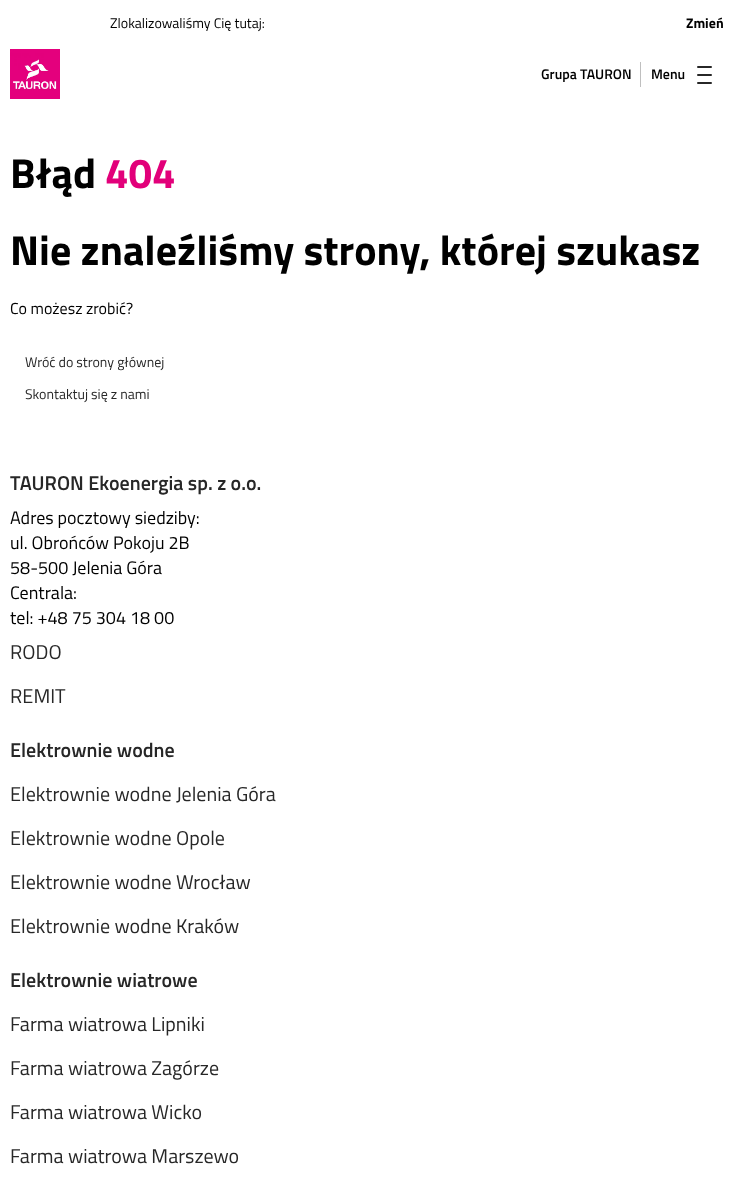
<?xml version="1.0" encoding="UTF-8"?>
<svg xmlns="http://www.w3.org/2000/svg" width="749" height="1180">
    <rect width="100%" height="100%" fill="#FFFFFF"/>
    <text x="110" y="28" font-family="Titillium Web" font-size="14" fill="#000000">Zlokalizowaliśmy Cię tutaj:</text>
    <text x="686" y="28" font-family="Titillium Web" font-size="14" font-weight="700" fill="#000000">Zmień</text>
    <image x="10" y="49" width="50" height="50" href="img_01.png"/>
    <text x="541" y="79" font-family="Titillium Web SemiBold" font-size="14" font-weight="600" fill="#000000">Grupa TAURON</text>
    <rect x="640" y="62" width="1" height="25" fill="#BFBFBF"/>
    <rect x="697" y="66" width="15" height="2" rx="1" fill="#272727"/>
    <text x="651" y="79" font-family="Titillium Web SemiBold" font-size="14" font-weight="600" fill="#000000">Menu</text>
    <rect x="697" y="74" width="15" height="2" rx="1" fill="#272727"/>
    <rect x="697" y="82" width="15" height="2" rx="1" fill="#272727"/>
    <text x="10" y="188" font-family="Titillium Web" font-size="42" font-weight="700" fill="#000000">Błąd</text>
    <text x="105" y="188" font-family="Titillium Web" font-size="42" font-weight="700" fill="#E2007A">404</text>
    <text x="10" y="265" font-family="Titillium Web" font-size="42" font-weight="700" fill="#000000">Nie znaleźliśmy strony, której szukasz</text>
    <text x="10" y="314" font-family="Titillium Web" font-size="16" fill="#000000">Co możesz zrobić?</text>
    <text x="25" y="367" font-family="Titillium Web" font-size="14" fill="#272727">Wróć do strony głównej</text>
    <text x="25" y="399" font-family="Titillium Web" font-size="14" fill="#272727">Skontaktuj się z nami</text>
    <text x="10" y="490" font-family="Titillium Web SemiBold" font-size="20" font-weight="600" fill="#272727">TAURON Ekoenergia sp. z o.o.</text>
    <text font-family="Titillium Web" font-size="18" fill="#000000">
        <tspan x="10" y="524">Adres pocztowy siedziby:</tspan>
        <tspan x="10" y="549">ul. Obrońców Pokoju 2B</tspan>
        <tspan x="10" y="574">58-500 Jelenia Góra</tspan>
        <tspan x="10" y="599">Centrala:</tspan>
        <tspan x="10" y="624">tel: +48 75 304 18 00</tspan>
    </text>
    <text x="10" y="659" font-family="Titillium Web" font-size="20" fill="#272727">RODO</text>
    <text x="10" y="703" font-family="Titillium Web" font-size="20" fill="#272727">REMIT</text>
    <text x="10" y="757" font-family="Titillium Web SemiBold" font-size="20" font-weight="600" fill="#272727">Elektrownie wodne</text>
    <text x="10" y="801" font-family="Titillium Web" font-size="20" fill="#272727">Elektrownie wodne Jelenia Góra</text>
    <text x="10" y="845" font-family="Titillium Web" font-size="20" fill="#272727">Elektrownie wodne Opole</text>
    <text x="10" y="889" font-family="Titillium Web" font-size="20" fill="#272727">Elektrownie wodne Wrocław</text>
    <text x="10" y="933" font-family="Titillium Web" font-size="20" fill="#272727">Elektrownie wodne Kraków</text>
    <text x="10" y="987" font-family="Titillium Web SemiBold" font-size="20" font-weight="600" fill="#272727">Elektrownie wiatrowe</text>
    <text x="10" y="1031" font-family="Titillium Web" font-size="20" fill="#272727">Farma wiatrowa Lipniki</text>
    <text x="10" y="1075" font-family="Titillium Web" font-size="20" fill="#272727">Farma wiatrowa Zagórze</text>
    <text x="10" y="1119" font-family="Titillium Web" font-size="20" fill="#272727">Farma wiatrowa Wicko</text>
    <text x="10" y="1163" font-family="Titillium Web" font-size="20" fill="#272727">Farma wiatrowa Marszewo</text>
</svg>
